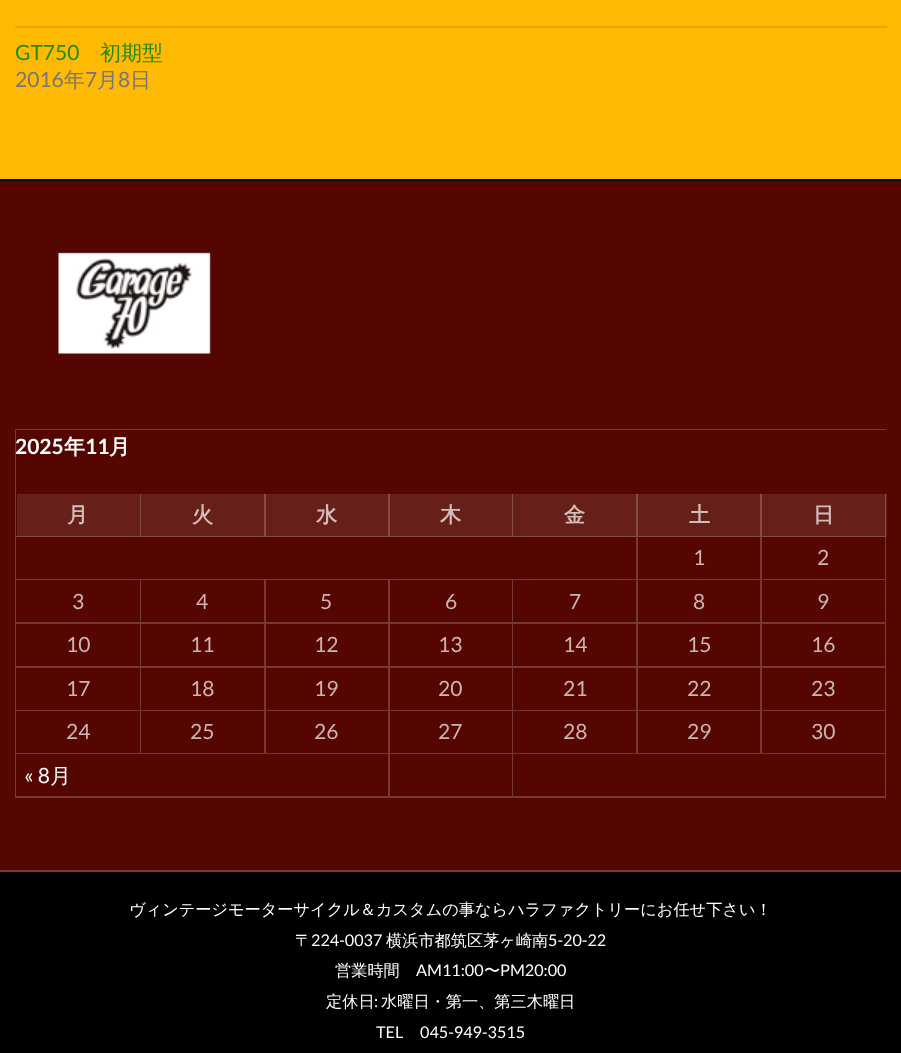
<?xml version="1.0" encoding="UTF-8"?>
<svg xmlns="http://www.w3.org/2000/svg" width="901" height="1053">
    <rect width="100%" height="100%" fill="#FEB902"/>
    <rect x="15" y="26" width="872" height="2" fill="#E5A702"/>
    <text x="15" y="60" font-family="Lato" font-size="21" fill="#24890D">GT750</text>
    <text x="100" y="60" font-family="WenQuanYi Zen Hei" font-size="21" font-weight="500" fill="#24890D">初期型</text>
    <text x="15" y="87" font-family="Lato" font-size="21" fill="#767676">2016</text>
    <text x="64" y="87" font-family="WenQuanYi Zen Hei" font-size="21" font-weight="500" fill="#767676">年</text>
    <text x="85" y="87" font-family="Lato" font-size="21" fill="#767676">7</text>
    <text x="97" y="87" font-family="WenQuanYi Zen Hei" font-size="21" font-weight="500" fill="#767676">月</text>
    <text x="118" y="87" font-family="Lato" font-size="21" fill="#767676">8</text>
    <text x="130" y="87" font-family="WenQuanYi Zen Hei" font-size="21" font-weight="500" fill="#767676">日</text>
    <rect x="0" y="181" width="901" height="689" fill="#560600"/>
    <rect x="0" y="179" width="901" height="2" fill="#000000"/>
    <rect x="0" y="870" width="901" height="2" fill="#783833"/>
    <image x="58" y="252" width="153" height="102" href="img_01.png"/>
    <path d="M 15 429 H 886 V 430 H 16 Z" fill="#783833"/>
    <path d="M 15 798 V 429 L 16 430 V 798 Z" fill="#FFFFFF" fill-opacity="0.2"/>
    <text x="15" y="454" font-family="Lato" font-size="21" font-weight="700" fill="#FFFFFF">2025</text>
    <text x="64" y="454" font-family="WenQuanYi Zen Hei" font-size="21" font-weight="700" fill="#FFFFFF">年</text>
    <text x="85" y="454" font-family="Lato" font-size="21" font-weight="700" fill="#FFFFFF">11</text>
    <text x="109" y="454" font-family="WenQuanYi Zen Hei" font-size="21" font-weight="700" fill="#FFFFFF">月</text>
    <rect x="17" y="494" width="870" height="43" fill="#671F1A"/>
    <path d="M 141 494 V 537 L 140 536 V 494 Z" fill="#854C48"/>
    <path d="M 141 537 H 16 V 536 H 140 Z" fill="#FFFFFF" fill-opacity="0.2"/>
    <text x="67" y="522" font-family="WenQuanYi Zen Hei" font-size="21" font-weight="700" fill="#D1BCBA">月</text>
    <path d="M 266 494 V 537 L 264 536 V 494 Z" fill="#854C48"/>
    <path d="M 266 537 H 141 V 536 H 264 Z" fill="#FFFFFF" fill-opacity="0.2"/>
    <text x="192" y="522" font-family="WenQuanYi Zen Hei" font-size="21" font-weight="700" fill="#D1BCBA">火</text>
    <path d="M 390 494 V 537 L 388 536 V 494 Z" fill="#854C48"/>
    <path d="M 390 537 H 266 V 536 H 388 Z" fill="#FFFFFF" fill-opacity="0.2"/>
    <text x="316" y="522" font-family="WenQuanYi Zen Hei" font-size="21" font-weight="700" fill="#D1BCBA">水</text>
    <path d="M 513 494 V 537 L 512 536 V 494 Z" fill="#854C48"/>
    <path d="M 513 537 H 390 V 536 H 512 Z" fill="#FFFFFF" fill-opacity="0.2"/>
    <text x="440" y="522" font-family="WenQuanYi Zen Hei" font-size="21" font-weight="700" fill="#D1BCBA">木</text>
    <path d="M 638 494 V 537 L 636 536 V 494 Z" fill="#854C48"/>
    <path d="M 638 537 H 513 V 536 H 636 Z" fill="#FFFFFF" fill-opacity="0.2"/>
    <text x="564" y="522" font-family="WenQuanYi Zen Hei" font-size="21" font-weight="700" fill="#D1BCBA">金</text>
    <path d="M 762 494 V 537 L 760 536 V 494 Z" fill="#854C48"/>
    <path d="M 762 537 H 638 V 536 H 760 Z" fill="#FFFFFF" fill-opacity="0.2"/>
    <text x="689" y="522" font-family="WenQuanYi Zen Hei" font-size="21" font-weight="700" fill="#D1BCBA">土</text>
    <path d="M 886 494 V 537 L 885 536 V 494 Z" fill="#854C48"/>
    <path d="M 886 537 H 762 V 536 H 885 Z" fill="#FFFFFF" fill-opacity="0.2"/>
    <text x="813" y="522" font-family="WenQuanYi Zen Hei" font-size="21" font-weight="700" fill="#D1BCBA">日</text>
    <path d="M 638 537 V 580 L 636 579 V 537 Z" fill="#783833"/>
    <path d="M 638 580 H 16 V 579 H 636 Z" fill="#FFFFFF" fill-opacity="0.2"/>
    <path d="M 762 537 V 580 L 760 579 V 537 Z" fill="#783833"/>
    <path d="M 762 580 H 638 V 579 H 760 Z" fill="#FFFFFF" fill-opacity="0.2"/>
    <text x="693" y="565" font-family="Lato" font-size="21" fill="#CCB4B3">1</text>
    <path d="M 886 537 V 580 L 885 579 V 537 Z" fill="#783833"/>
    <path d="M 886 580 H 762 V 579 H 885 Z" fill="#FFFFFF" fill-opacity="0.2"/>
    <text x="817" y="565" font-family="Lato" font-size="21" fill="#CCB4B3">2</text>
    <path d="M 141 580 V 624 L 140 622 V 580 Z" fill="#783833"/>
    <path d="M 141 624 H 16 V 622 H 140 Z" fill="#FFFFFF" fill-opacity="0.2"/>
    <text x="72" y="609" font-family="Lato" font-size="21" fill="#CCB4B3">3</text>
    <path d="M 266 580 V 624 L 264 622 V 580 Z" fill="#783833"/>
    <path d="M 266 624 H 141 V 622 H 264 Z" fill="#FFFFFF" fill-opacity="0.2"/>
    <text x="196" y="609" font-family="Lato" font-size="21" fill="#CCB4B3">4</text>
    <path d="M 390 580 V 624 L 388 622 V 580 Z" fill="#783833"/>
    <path d="M 390 624 H 266 V 622 H 388 Z" fill="#FFFFFF" fill-opacity="0.2"/>
    <text x="320" y="609" font-family="Lato" font-size="21" fill="#CCB4B3">5</text>
    <path d="M 513 580 V 624 L 512 622 V 580 Z" fill="#783833"/>
    <path d="M 513 624 H 390 V 622 H 512 Z" fill="#FFFFFF" fill-opacity="0.2"/>
    <text x="445" y="609" font-family="Lato" font-size="21" fill="#CCB4B3">6</text>
    <path d="M 638 580 V 624 L 636 622 V 580 Z" fill="#783833"/>
    <path d="M 638 624 H 513 V 622 H 636 Z" fill="#FFFFFF" fill-opacity="0.2"/>
    <text x="569" y="609" font-family="Lato" font-size="21" fill="#CCB4B3">7</text>
    <path d="M 762 580 V 624 L 760 622 V 580 Z" fill="#783833"/>
    <path d="M 762 624 H 638 V 622 H 760 Z" fill="#FFFFFF" fill-opacity="0.2"/>
    <text x="693" y="609" font-family="Lato" font-size="21" fill="#CCB4B3">8</text>
    <path d="M 886 580 V 624 L 885 622 V 580 Z" fill="#783833"/>
    <path d="M 886 624 H 762 V 622 H 885 Z" fill="#FFFFFF" fill-opacity="0.2"/>
    <text x="817" y="609" font-family="Lato" font-size="21" fill="#CCB4B3">9</text>
    <path d="M 141 624 V 668 L 140 666 V 624 Z" fill="#783833"/>
    <path d="M 141 668 H 16 V 666 H 140 Z" fill="#FFFFFF" fill-opacity="0.2"/>
    <text x="66" y="652" font-family="Lato" font-size="21" fill="#CCB4B3">10</text>
    <path d="M 266 624 V 668 L 264 666 V 624 Z" fill="#783833"/>
    <path d="M 266 668 H 141 V 666 H 264 Z" fill="#FFFFFF" fill-opacity="0.2"/>
    <text x="190" y="652" font-family="Lato" font-size="21" fill="#CCB4B3">11</text>
    <path d="M 390 624 V 668 L 388 666 V 624 Z" fill="#783833"/>
    <path d="M 390 668 H 266 V 666 H 388 Z" fill="#FFFFFF" fill-opacity="0.2"/>
    <text x="314" y="652" font-family="Lato" font-size="21" fill="#CCB4B3">12</text>
    <path d="M 513 624 V 668 L 512 666 V 624 Z" fill="#783833"/>
    <path d="M 513 668 H 390 V 666 H 512 Z" fill="#FFFFFF" fill-opacity="0.2"/>
    <text x="438" y="652" font-family="Lato" font-size="21" fill="#CCB4B3">13</text>
    <path d="M 638 624 V 668 L 636 666 V 624 Z" fill="#783833"/>
    <path d="M 638 668 H 513 V 666 H 636 Z" fill="#FFFFFF" fill-opacity="0.2"/>
    <text x="563" y="652" font-family="Lato" font-size="21" fill="#CCB4B3">14</text>
    <path d="M 762 624 V 668 L 760 666 V 624 Z" fill="#783833"/>
    <path d="M 762 668 H 638 V 666 H 760 Z" fill="#FFFFFF" fill-opacity="0.2"/>
    <text x="687" y="652" font-family="Lato" font-size="21" fill="#CCB4B3">15</text>
    <path d="M 886 624 V 668 L 885 666 V 624 Z" fill="#783833"/>
    <path d="M 886 668 H 762 V 666 H 885 Z" fill="#FFFFFF" fill-opacity="0.2"/>
    <text x="811" y="652" font-family="Lato" font-size="21" fill="#CCB4B3">16</text>
    <path d="M 141 668 V 711 L 140 710 V 668 Z" fill="#783833"/>
    <path d="M 141 711 H 16 V 710 H 140 Z" fill="#FFFFFF" fill-opacity="0.2"/>
    <text x="66" y="696" font-family="Lato" font-size="21" fill="#CCB4B3">17</text>
    <path d="M 266 668 V 711 L 264 710 V 668 Z" fill="#783833"/>
    <path d="M 266 711 H 141 V 710 H 264 Z" fill="#FFFFFF" fill-opacity="0.2"/>
    <text x="190" y="696" font-family="Lato" font-size="21" fill="#CCB4B3">18</text>
    <path d="M 390 668 V 711 L 388 710 V 668 Z" fill="#783833"/>
    <path d="M 390 711 H 266 V 710 H 388 Z" fill="#FFFFFF" fill-opacity="0.2"/>
    <text x="314" y="696" font-family="Lato" font-size="21" fill="#CCB4B3">19</text>
    <path d="M 513 668 V 711 L 512 710 V 668 Z" fill="#783833"/>
    <path d="M 513 711 H 390 V 710 H 512 Z" fill="#FFFFFF" fill-opacity="0.2"/>
    <text x="438" y="696" font-family="Lato" font-size="21" fill="#CCB4B3">20</text>
    <path d="M 638 668 V 711 L 636 710 V 668 Z" fill="#783833"/>
    <path d="M 638 711 H 513 V 710 H 636 Z" fill="#FFFFFF" fill-opacity="0.2"/>
    <text x="563" y="696" font-family="Lato" font-size="21" fill="#CCB4B3">21</text>
    <path d="M 762 668 V 711 L 760 710 V 668 Z" fill="#783833"/>
    <path d="M 762 711 H 638 V 710 H 760 Z" fill="#FFFFFF" fill-opacity="0.2"/>
    <text x="687" y="696" font-family="Lato" font-size="21" fill="#CCB4B3">22</text>
    <path d="M 886 668 V 711 L 885 710 V 668 Z" fill="#783833"/>
    <path d="M 886 711 H 762 V 710 H 885 Z" fill="#FFFFFF" fill-opacity="0.2"/>
    <text x="811" y="696" font-family="Lato" font-size="21" fill="#CCB4B3">23</text>
    <path d="M 141 711 V 754 L 140 753 V 711 Z" fill="#783833"/>
    <path d="M 141 754 H 16 V 753 H 140 Z" fill="#FFFFFF" fill-opacity="0.2"/>
    <text x="66" y="739" font-family="Lato" font-size="21" fill="#CCB4B3">24</text>
    <path d="M 266 711 V 754 L 264 753 V 711 Z" fill="#783833"/>
    <path d="M 266 754 H 141 V 753 H 264 Z" fill="#FFFFFF" fill-opacity="0.2"/>
    <text x="190" y="739" font-family="Lato" font-size="21" fill="#CCB4B3">25</text>
    <path d="M 390 711 V 754 L 388 753 V 711 Z" fill="#783833"/>
    <path d="M 390 754 H 266 V 753 H 388 Z" fill="#FFFFFF" fill-opacity="0.2"/>
    <text x="314" y="739" font-family="Lato" font-size="21" fill="#CCB4B3">26</text>
    <path d="M 513 711 V 754 L 512 753 V 711 Z" fill="#783833"/>
    <path d="M 513 754 H 390 V 753 H 512 Z" fill="#FFFFFF" fill-opacity="0.2"/>
    <text x="438" y="739" font-family="Lato" font-size="21" fill="#CCB4B3">27</text>
    <path d="M 638 711 V 754 L 636 753 V 711 Z" fill="#783833"/>
    <path d="M 638 754 H 513 V 753 H 636 Z" fill="#FFFFFF" fill-opacity="0.2"/>
    <text x="563" y="739" font-family="Lato" font-size="21" fill="#CCB4B3">28</text>
    <path d="M 762 711 V 754 L 760 753 V 711 Z" fill="#783833"/>
    <path d="M 762 754 H 638 V 753 H 760 Z" fill="#FFFFFF" fill-opacity="0.2"/>
    <text x="687" y="739" font-family="Lato" font-size="21" fill="#CCB4B3">29</text>
    <path d="M 886 711 V 754 L 885 753 V 711 Z" fill="#783833"/>
    <path d="M 886 754 H 762 V 753 H 885 Z" fill="#FFFFFF" fill-opacity="0.2"/>
    <text x="811" y="739" font-family="Lato" font-size="21" fill="#CCB4B3">30</text>
    <path d="M 390 754 V 798 L 388 796 V 754 Z" fill="#783833"/>
    <path d="M 390 798 H 16 V 796 H 388 Z" fill="#FFFFFF" fill-opacity="0.2"/>
    <text x="24" y="783" font-family="Lato" font-size="21" fill="#FFFFFF">« 8</text>
    <text x="50" y="783" font-family="WenQuanYi Zen Hei" font-size="21" font-weight="500" fill="#FFFFFF">月</text>
    <path d="M 513 754 V 798 L 512 796 V 754 Z" fill="#783833"/>
    <path d="M 513 798 H 390 V 796 H 512 Z" fill="#FFFFFF" fill-opacity="0.2"/>
    <path d="M 886 754 V 798 L 885 796 V 754 Z" fill="#783833"/>
    <path d="M 886 798 H 513 V 796 H 885 Z" fill="#FFFFFF" fill-opacity="0.2"/>
    <rect x="0" y="872" width="901" height="181" fill="#000000"/>
    <text x="129" y="915" font-family="WenQuanYi Zen Hei" font-size="16.2" font-weight="500" fill="#FFFFFF">ヴィンテージモーターサイクル＆カスタムの事ならハラファクトリーにお任せ下さい！</text>
    <text x="295" y="946" font-family="WenQuanYi Zen Hei" font-size="16.2" font-weight="500" fill="#FFFFFF">〒</text>
    <text x="311" y="946" font-family="Lato" font-size="16.2" fill="#FFFFFF">224-0037</text>
    <text x="386" y="946" font-family="WenQuanYi Zen Hei" font-size="16.2" font-weight="500" fill="#FFFFFF">横浜市都筑区茅ヶ崎南</text>
    <text x="548" y="946" font-family="Lato" font-size="16.2" fill="#FFFFFF">5-20-22</text>
    <text x="335" y="976" font-family="WenQuanYi Zen Hei" font-size="16.2" font-weight="500" fill="#FFFFFF">営業時間</text>
    <text x="416" y="976" font-family="Lato" font-size="16.2" fill="#FFFFFF">AM11:00</text>
    <text x="484" y="976" font-family="WenQuanYi Zen Hei" font-size="16.2" font-weight="500" fill="#FFFFFF">〜</text>
    <text x="500" y="976" font-family="Lato" font-size="16.2" fill="#FFFFFF">PM20:00</text>
    <text x="326" y="1007" font-family="WenQuanYi Zen Hei" font-size="16.2" font-weight="500" fill="#FFFFFF">定休日</text>
    <text x="374" y="1007" font-family="Lato" font-size="16.2" fill="#FFFFFF">:</text>
    <text x="381" y="1007" font-family="WenQuanYi Zen Hei" font-size="16.2" font-weight="500" fill="#FFFFFF">水曜日・第一、第三木曜日</text>
    <text x="376" y="1038" font-family="Lato" font-size="16.2" fill="#FFFFFF">TEL</text>
    <text x="420" y="1038" font-family="Lato" font-size="16.2" fill="#FFFFFF">045-949-3515</text>
</svg>
